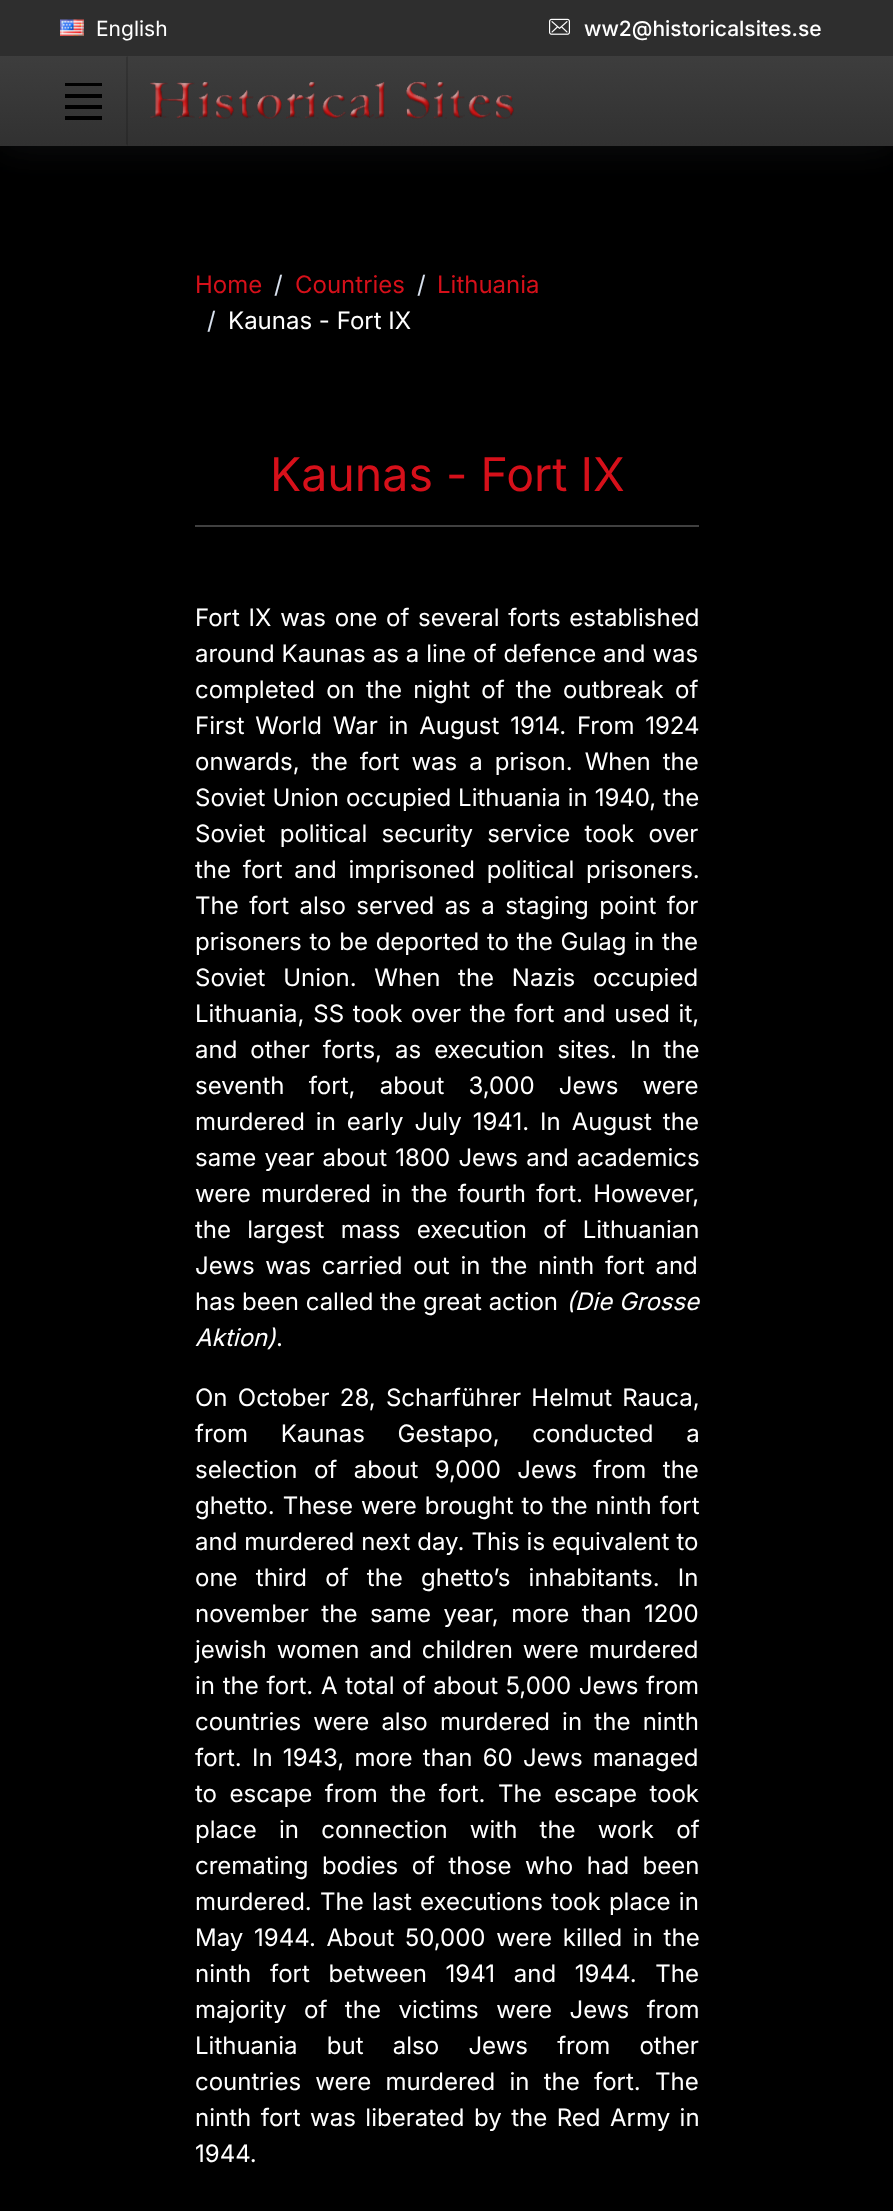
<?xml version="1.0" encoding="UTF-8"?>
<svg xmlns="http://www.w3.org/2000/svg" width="893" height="2211">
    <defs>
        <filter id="blur1" x="-50%" y="-200%" width="200%" height="500%"><feGaussianBlur stdDeviation="19"/></filter>
        <linearGradient id="g1" gradientUnits="userSpaceOnUse" x1="447" y1="0" x2="447" y2="146"><stop offset="0" stop-color="#454545"/><stop offset="1" stop-color="#313131"/></linearGradient>
    </defs>
    <rect width="100%" height="100%" fill="#000000"/>
    <rect x="0" y="0" width="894" height="146" fill="#8C98A4" fill-opacity="0.1" filter="url(#blur1)"/>
    <rect x="0" y="56" width="893" height="90" fill="url(#g1)"/>
    <rect x="0" y="0" width="893" height="56" fill="#2E2E2E"/>
    <image x="60" y="19" width="24" height="17" href="img_01.png"/>
    <text x="96" y="36" font-family="Inter" font-size="21" fill="#FFFFFF">English</text>
    <image x="549" y="18" width="21" height="17" href="img_02.png"/>
    <text x="584" y="36" font-family="Inter" font-size="21" font-weight="500" fill="#FFFFFF">ww2@historicalsites.se</text>
    <path d="M 128 56 V 146 L 126 144 V 57 Z" fill="#000000" fill-opacity="0.15"/>
    <rect x="65" y="83" width="37" height="3" fill="#000000"/>
    <rect x="65" y="94" width="37" height="4" fill="#000000"/>
    <rect x="65" y="105" width="37" height="4" fill="#000000"/>
    <rect x="65" y="116" width="37" height="4" fill="#000000"/>
    <image x="150" y="81" width="364" height="38" href="img_03.png"/>
    <text x="195" y="293" font-family="Inter" font-size="24" fill="#D6101A">Home</text>
    <text x="274" y="293" font-family="Inter" font-size="24" fill="#D9E2EF">/</text>
    <text x="295" y="293" font-family="Inter" font-size="24" fill="#D6101A">Countries</text>
    <text x="417" y="293" font-family="Inter" font-size="24" fill="#D9E2EF">/</text>
    <text x="437" y="293" font-family="Inter" font-size="24" fill="#D6101A">Lithuania</text>
    <text x="207" y="329" font-family="Inter" font-size="24" fill="#D9E2EF">/</text>
    <text x="228" y="329" font-family="Inter" font-size="24" fill="#FFFFFF">Kaunas - Fort IX</text>
    <text x="270" y="491" font-family="Inter" font-size="46.5" fill="#D6101A">Kaunas - Fort IX</text>
    <rect x="195" y="525" width="504" height="2" fill="#404040"/>
    <text font-family="Inter" font-size="24" fill="#FFFFFF">
        <tspan x="195" y="626" word-spacing="2">Fort IX was one of several forts established</tspan>
        <tspan x="195" y="662" word-spacing="0.25">around Kaunas as a line of defence and was</tspan>
        <tspan x="195" y="698" word-spacing="4.5">completed on the night of the outbreak of</tspan>
        <tspan x="195" y="734" word-spacing="4">First World War in August 1914. From 1924</tspan>
        <tspan x="195" y="770" word-spacing="5.25">onwards, the fort was a prison. When the</tspan>
        <tspan x="195" y="806" word-spacing="0.25">Soviet Union occupied Lithuania in 1940, the</tspan>
        <tspan x="195" y="842" word-spacing="7.5">Soviet political security service took over</tspan>
        <tspan x="195" y="878" word-spacing="5">the fort and imprisoned political prisoners.</tspan>
        <tspan x="195" y="914" word-spacing="3.75">The fort also served as a staging point for</tspan>
        <tspan x="195" y="950" word-spacing="1">prisoners to be deported to the Gulag in the</tspan>
        <tspan x="195" y="986" word-spacing="11">Soviet Union. When the Nazis occupied</tspan>
        <tspan x="195" y="1022" word-spacing="2">Lithuania, SS took over the fort and used it,</tspan>
        <tspan x="195" y="1058" word-spacing="6.25">and other forts, as execution sites. In the</tspan>
        <tspan x="195" y="1094" word-spacing="17.5">seventh fort, about 3,000 Jews were</tspan>
        <tspan x="195" y="1130" word-spacing="4.25">murdered in early July 1941. In August the</tspan>
        <tspan x="195" y="1166" word-spacing="1.5">same year about 1800 Jews and academics</tspan>
        <tspan x="195" y="1202" word-spacing="3.5">were murdered in the fourth fort. However,</tspan>
        <tspan x="195" y="1238" word-spacing="9.5">the largest mass execution of Lithuanian</tspan>
        <tspan x="195" y="1274" word-spacing="4">Jews was carried out in the ninth fort and</tspan>
        <tspan x="195" y="1310">has been called the great action</tspan>
    </text>
    <text x="566" y="1310" font-family="Inter" font-size="24" font-style="italic" fill="#FFFFFF">(Die Grosse</text>
    <text x="195" y="1346" font-family="Inter" font-size="24" font-style="italic" fill="#FFFFFF">Aktion)</text>
    <text x="276" y="1346" font-family="Inter" font-size="24" fill="#FFFFFF">.</text>
    <text font-family="Inter" font-size="24" fill="#FFFFFF">
        <tspan x="195" y="1406" word-spacing="3.5">On October 28, Scharführer Helmut Rauca,</tspan>
        <tspan x="195" y="1442" word-spacing="26">from Kaunas Gestapo, conducted a</tspan>
        <tspan x="195" y="1478" word-spacing="9.75">selection of about 9,000 Jews from the</tspan>
        <tspan x="195" y="1514" word-spacing="1.25">ghetto. These were brought to the ninth fort</tspan>
        <tspan x="195" y="1550" word-spacing="0.25">and murdered next day. This is equivalent to</tspan>
        <tspan x="195" y="1586" word-spacing="11.5">one third of the ghetto’s inhabitants. In</tspan>
        <tspan x="195" y="1622" word-spacing="5.75">november the same year, more than 1200</tspan>
        <tspan x="195" y="1658" word-spacing="3.25">jewish women and children were murdered</tspan>
        <tspan x="195" y="1694" word-spacing="1">in the fort. A total of about 5,000 Jews from</tspan>
        <tspan x="195" y="1730" word-spacing="5.5">countries were also murdered in the ninth</tspan>
        <tspan x="195" y="1766" word-spacing="3.5">fort. In 1943, more than 60 Jews managed</tspan>
        <tspan x="195" y="1802" word-spacing="5.75">to escape from the fort. The escape took</tspan>
        <tspan x="195" y="1838" word-spacing="15.5">place in connection with the work of</tspan>
        <tspan x="195" y="1874" word-spacing="6.75">cremating bodies of those who had been</tspan>
        <tspan x="195" y="1910" word-spacing="1.5">murdered. The last executions took place in</tspan>
        <tspan x="195" y="1946" word-spacing="4">May 1944. About 50,000 were killed in the</tspan>
        <tspan x="195" y="1982" word-spacing="12">ninth fort between 1941 and 1944. The</tspan>
        <tspan x="195" y="2018" word-spacing="10.75">majority of the victims were Jews from</tspan>
        <tspan x="195" y="2054" word-spacing="22.5">Lithuania but also Jews from other</tspan>
        <tspan x="195" y="2090" word-spacing="7.5">countries were murdered in the fort. The</tspan>
        <tspan x="195" y="2126" word-spacing="2.75">ninth fort was liberated by the Red Army in</tspan>
        <tspan x="195" y="2162">1944.</tspan>
    </text>
</svg>
